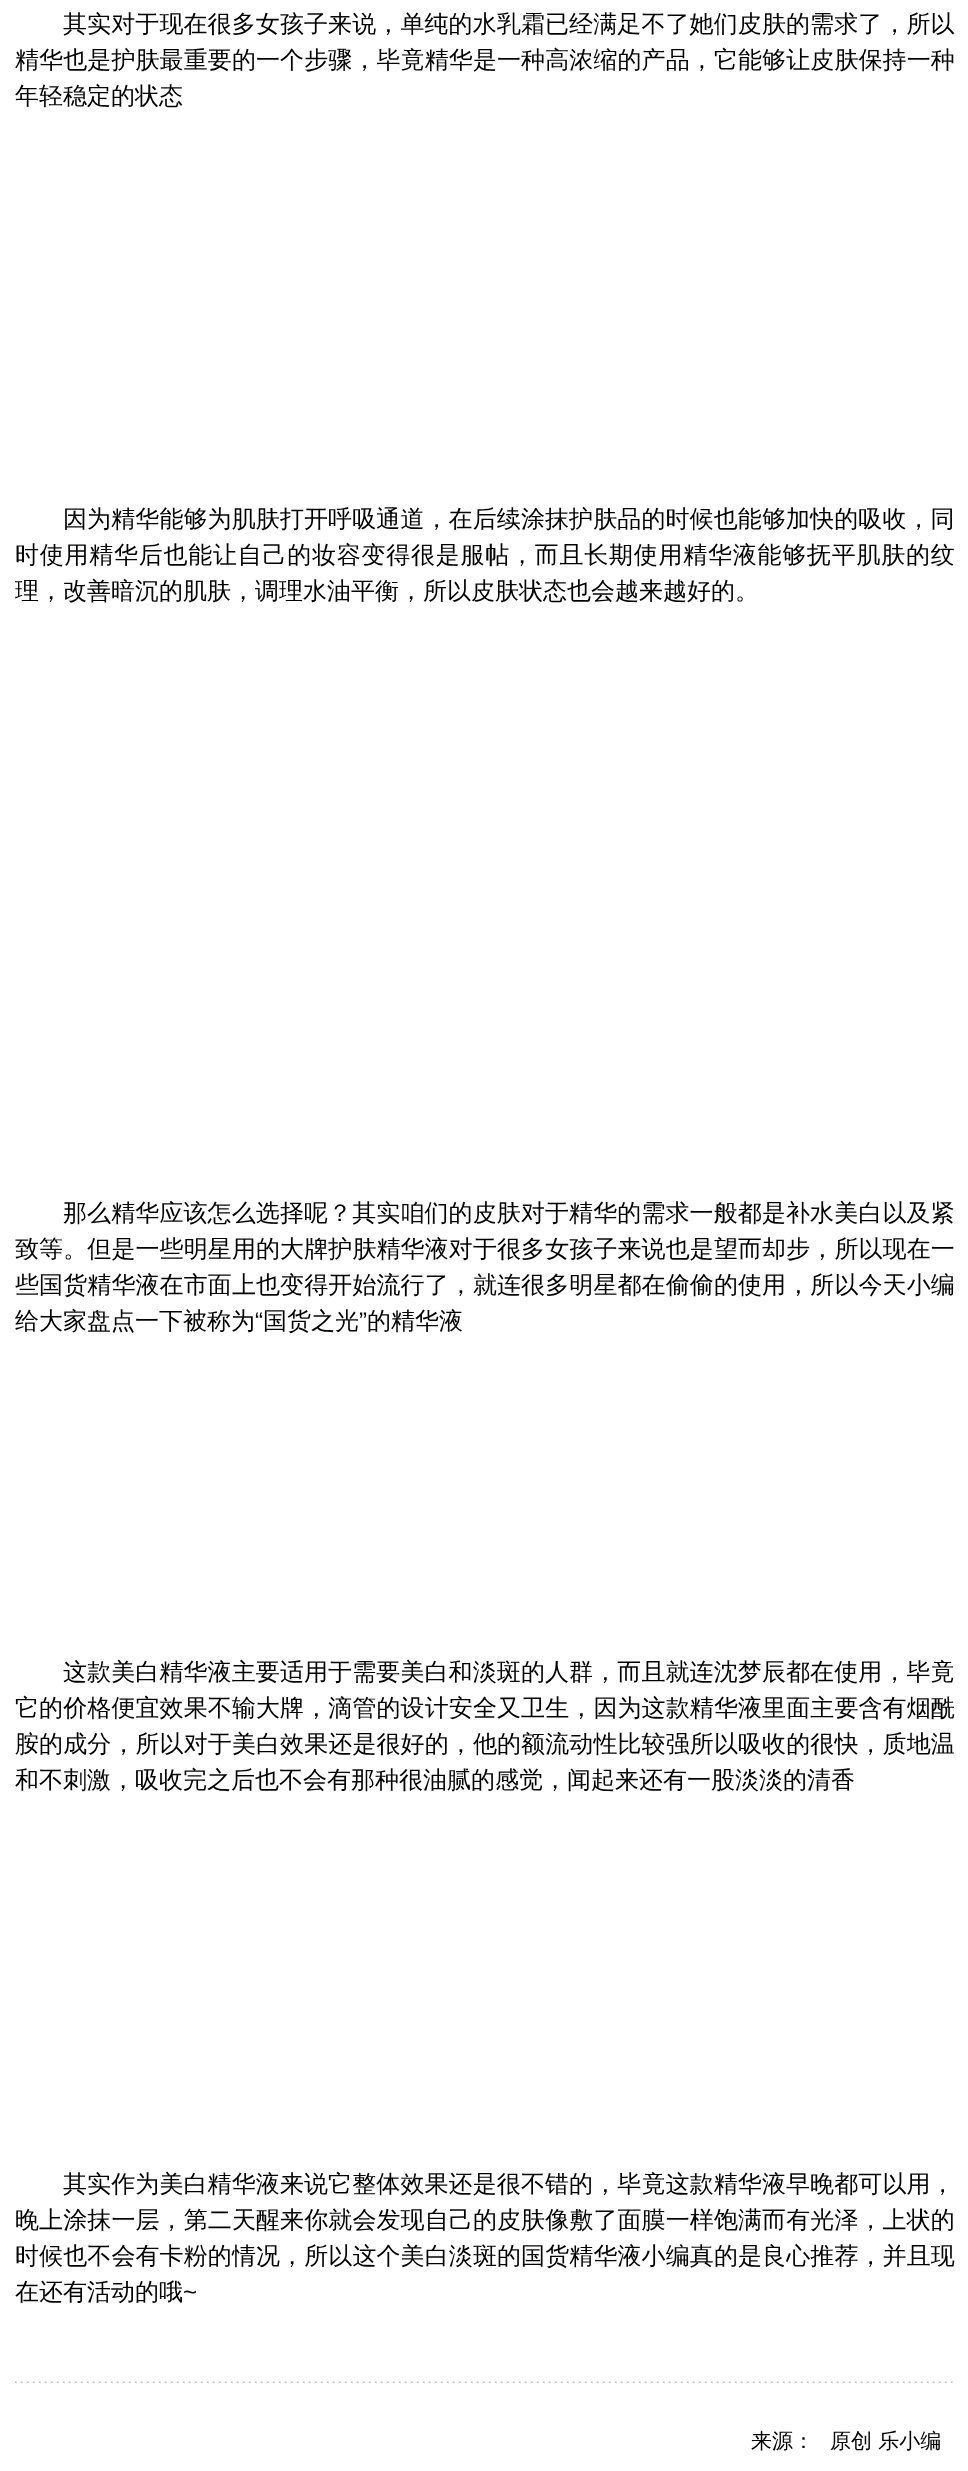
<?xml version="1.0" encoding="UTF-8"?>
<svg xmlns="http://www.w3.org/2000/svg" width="968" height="2471">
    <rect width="100%" height="100%" fill="#FFFFFF"/>
    <text x="63" y="32" font-family="WenQuanYi Zen Hei" font-size="24" font-weight="500" letter-spacing="0.1" fill="#000000">其实对于现在很多女孩子来说，单纯的水乳霜已经满足不了她们皮肤的需求了，所以</text>
    <text x="15" y="68" font-family="WenQuanYi Zen Hei" font-size="24" font-weight="500" letter-spacing="0.1" fill="#000000">精华也是护肤最重要的一个步骤，毕竟精华是一种高浓缩的产品，它能够让皮肤保持一种</text>
    <text x="15" y="104" font-family="WenQuanYi Zen Hei" font-size="24" font-weight="500" fill="#000000">年轻稳定的状态</text>
    <text x="63" y="527" font-family="WenQuanYi Zen Hei" font-size="24" font-weight="500" letter-spacing="0.1" fill="#000000">因为精华能够为肌肤打开呼吸通道，在后续涂抹护肤品的时候也能够加快的吸收，同</text>
    <text x="15" y="563" font-family="WenQuanYi Zen Hei" font-size="24" font-weight="500" letter-spacing="0.75" fill="#000000">时使用精华后也能让自己的妆容变得很是服帖，而且长期使用精华液能够抚平肌肤的纹</text>
    <text x="15" y="599" font-family="WenQuanYi Zen Hei" font-size="24" font-weight="500" fill="#000000">理，改善暗沉的肌肤，调理水油平衡，所以皮肤状态也会越来越好的。</text>
    <text x="63" y="1221" font-family="WenQuanYi Zen Hei" font-size="24" font-weight="500" letter-spacing="0.1" fill="#000000">那么精华应该怎么选择呢？其实咱们的皮肤对于精华的需求一般都是补水美白以及紧</text>
    <text font-family="WenQuanYi Zen Hei" font-size="24" font-weight="500" letter-spacing="0.1" fill="#000000">
        <tspan x="15" y="1257">致等。但是一些明星用的大牌护肤精华液对于很多女孩子来说也是望而却步，所以现在一</tspan>
        <tspan x="15" y="1293">些国货精华液在市面上也变得开始流行了，就连很多明星都在偷偷的使用，所以今天小编</tspan>
    </text>
    <text x="15" y="1329" font-family="WenQuanYi Zen Hei" font-size="24" font-weight="500" fill="#000000">给大家盘点一下被称为</text>
    <text x="255" y="1329" font-family="Liberation Sans" font-size="24" fill="#000000">“</text>
    <text x="263" y="1329" font-family="WenQuanYi Zen Hei" font-size="24" font-weight="500" fill="#000000">国货之光</text>
    <text x="359" y="1329" font-family="Liberation Sans" font-size="24" fill="#000000">”</text>
    <text x="367" y="1329" font-family="WenQuanYi Zen Hei" font-size="24" font-weight="500" fill="#000000">的精华液</text>
    <text x="63" y="1680" font-family="WenQuanYi Zen Hei" font-size="24" font-weight="500" letter-spacing="0.1" fill="#000000">这款美白精华液主要适用于需要美白和淡斑的人群，而且就连沈梦辰都在使用，毕竟</text>
    <text font-family="WenQuanYi Zen Hei" font-size="24" font-weight="500" letter-spacing="0.1" fill="#000000">
        <tspan x="15" y="1716">它的价格便宜效果不输大牌，滴管的设计安全又卫生，因为这款精华液里面主要含有烟酰</tspan>
        <tspan x="15" y="1752">胺的成分，所以对于美白效果还是很好的，他的额流动性比较强所以吸收的很快，质地温</tspan>
    </text>
    <text x="15" y="1788" font-family="WenQuanYi Zen Hei" font-size="24" font-weight="500" fill="#000000">和不刺激，吸收完之后也不会有那种很油腻的感觉，闻起来还有一股淡淡的清香</text>
    <text x="63" y="2192" font-family="WenQuanYi Zen Hei" font-size="24" font-weight="500" letter-spacing="0.1" fill="#000000">其实作为美白精华液来说它整体效果还是很不错的，毕竟这款精华液早晚都可以用，</text>
    <text font-family="WenQuanYi Zen Hei" font-size="24" font-weight="500" letter-spacing="0.1" fill="#000000">
        <tspan x="15" y="2228">晚上涂抹一层，第二天醒来你就会发现自己的皮肤像敷了面膜一样饱满而有光泽，上状的</tspan>
        <tspan x="15" y="2264">时候也不会有卡粉的情况，所以这个美白淡斑的国货精华液小编真的是良心推荐，并且现</tspan>
    </text>
    <text x="15" y="2300" font-family="WenQuanYi Zen Hei" font-size="24" font-weight="500" fill="#000000">在还有活动的哦</text>
    <text x="183" y="2300" font-family="Liberation Sans" font-size="24" fill="#000000">~</text>
    <image x="15" y="2381" width="938" height="2" href="img_01.png"/>
    <text x="751" y="2448" font-family="WenQuanYi Zen Hei" font-size="21" font-weight="500" fill="#000000">来源：</text>
    <text x="830" y="2448" font-family="WenQuanYi Zen Hei" font-size="21" font-weight="500" fill="#000000">原创 乐小编</text>
</svg>
